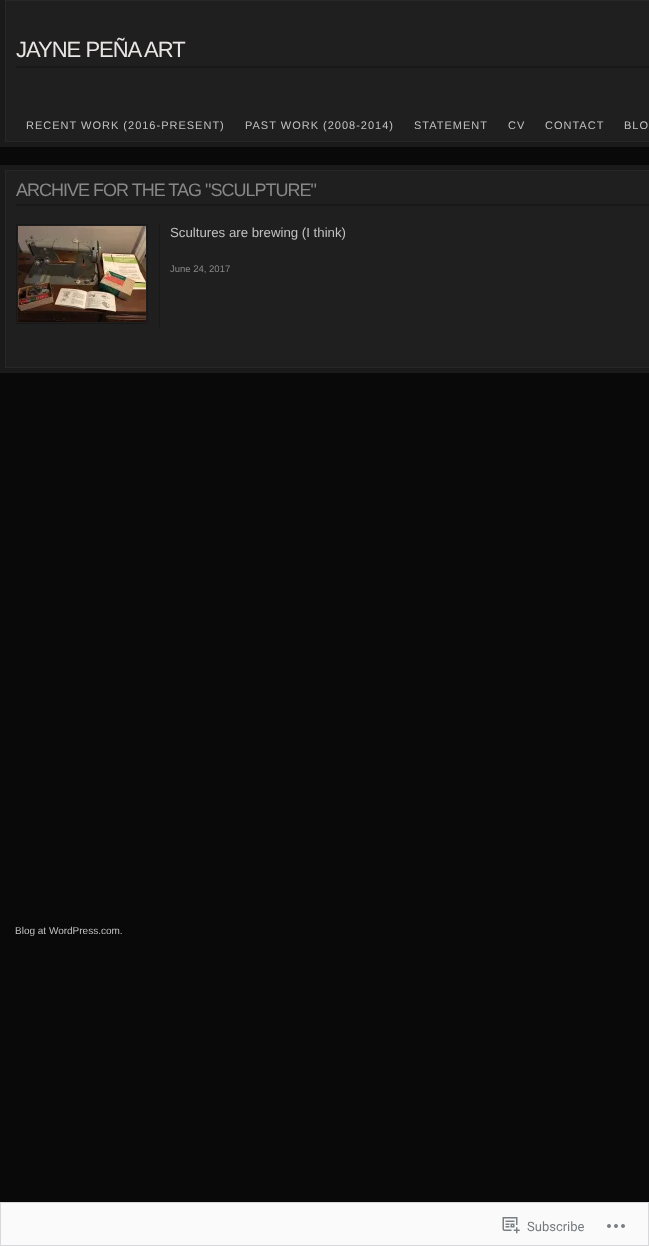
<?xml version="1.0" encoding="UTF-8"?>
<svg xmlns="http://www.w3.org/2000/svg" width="649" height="1246">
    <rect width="100%" height="100%" fill="#0A0909"/>
    <rect x="0" y="0" width="649" height="147" fill="#1A1A1A"/>
    <rect x="5.5" y="0.5" width="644" height="141" fill="#1F1F1F" stroke="#272727"/>
    <rect x="16" y="66" width="633" height="2" fill="#181818"/>
    <text x="16" y="57" font-family="Liberation Sans" font-size="22" letter-spacing="-1" fill="#E9E5E5">JAYNE PEÑA ART</text>
    <text x="26" y="129" font-family="Liberation Sans" font-size="11" letter-spacing="1" fill="#C2C2C2">RECENT WORK (2016-PRESENT)</text>
    <text x="245" y="129" font-family="Liberation Sans" font-size="11" letter-spacing="1" fill="#C2C2C2">PAST WORK (2008-2014)</text>
    <text x="414" y="129" font-family="Liberation Sans" font-size="11" letter-spacing="1" fill="#C2C2C2">STATEMENT</text>
    <text x="508" y="129" font-family="Liberation Sans" font-size="11" letter-spacing="1" fill="#C2C2C2">CV</text>
    <text x="545" y="129" font-family="Liberation Sans" font-size="11" letter-spacing="1" fill="#C2C2C2">CONTACT</text>
    <text x="624" y="129" font-family="Liberation Sans" font-size="11" letter-spacing="1" fill="#C2C2C2">BLO</text>
    <rect x="0" y="165" width="649" height="208" fill="#1A1A1A"/>
    <rect x="5.5" y="170.5" width="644" height="197" fill="#1F1F1F" stroke="#272727"/>
    <rect x="16" y="204" width="633" height="2" fill="#181818"/>
    <text x="16" y="196" font-family="Liberation Sans" font-size="18" letter-spacing="-1" fill="#888888">ARCHIVE FOR THE TAG "SCULPTURE"</text>
    <rect x="159" y="224" width="1" height="105" fill="#181818"/>
    <rect x="16.5" y="224.5" width="131" height="99" fill="none" stroke="#181818"/>
    <image x="18" y="226" width="128" height="96" href="img_01.png"/>
    <text x="170" y="237" font-family="Liberation Sans" font-size="13.25" fill="#C2C2C2">Scultures are brewing (I think)</text>
    <text x="170" y="272" font-family="Liberation Sans" font-size="9.5" fill="#888888">June 24, 2017</text>
    <text x="15" y="934" font-family="Liberation Sans" font-size="10" fill="#C2C2C2">Blog at WordPress.com.</text>
    <rect x="0.5" y="1202.5" width="648" height="43" fill="#FAFAFA" stroke="#D8D8DA"/>
    <image x="502" y="1217" width="18" height="17" href="img_02.png"/>
    <text x="527" y="1231" font-family="Roboto" font-size="13" fill="#767A80">Subscribe</text>
    <image x="607" y="1224" width="18" height="4" href="img_03.png"/>
</svg>
